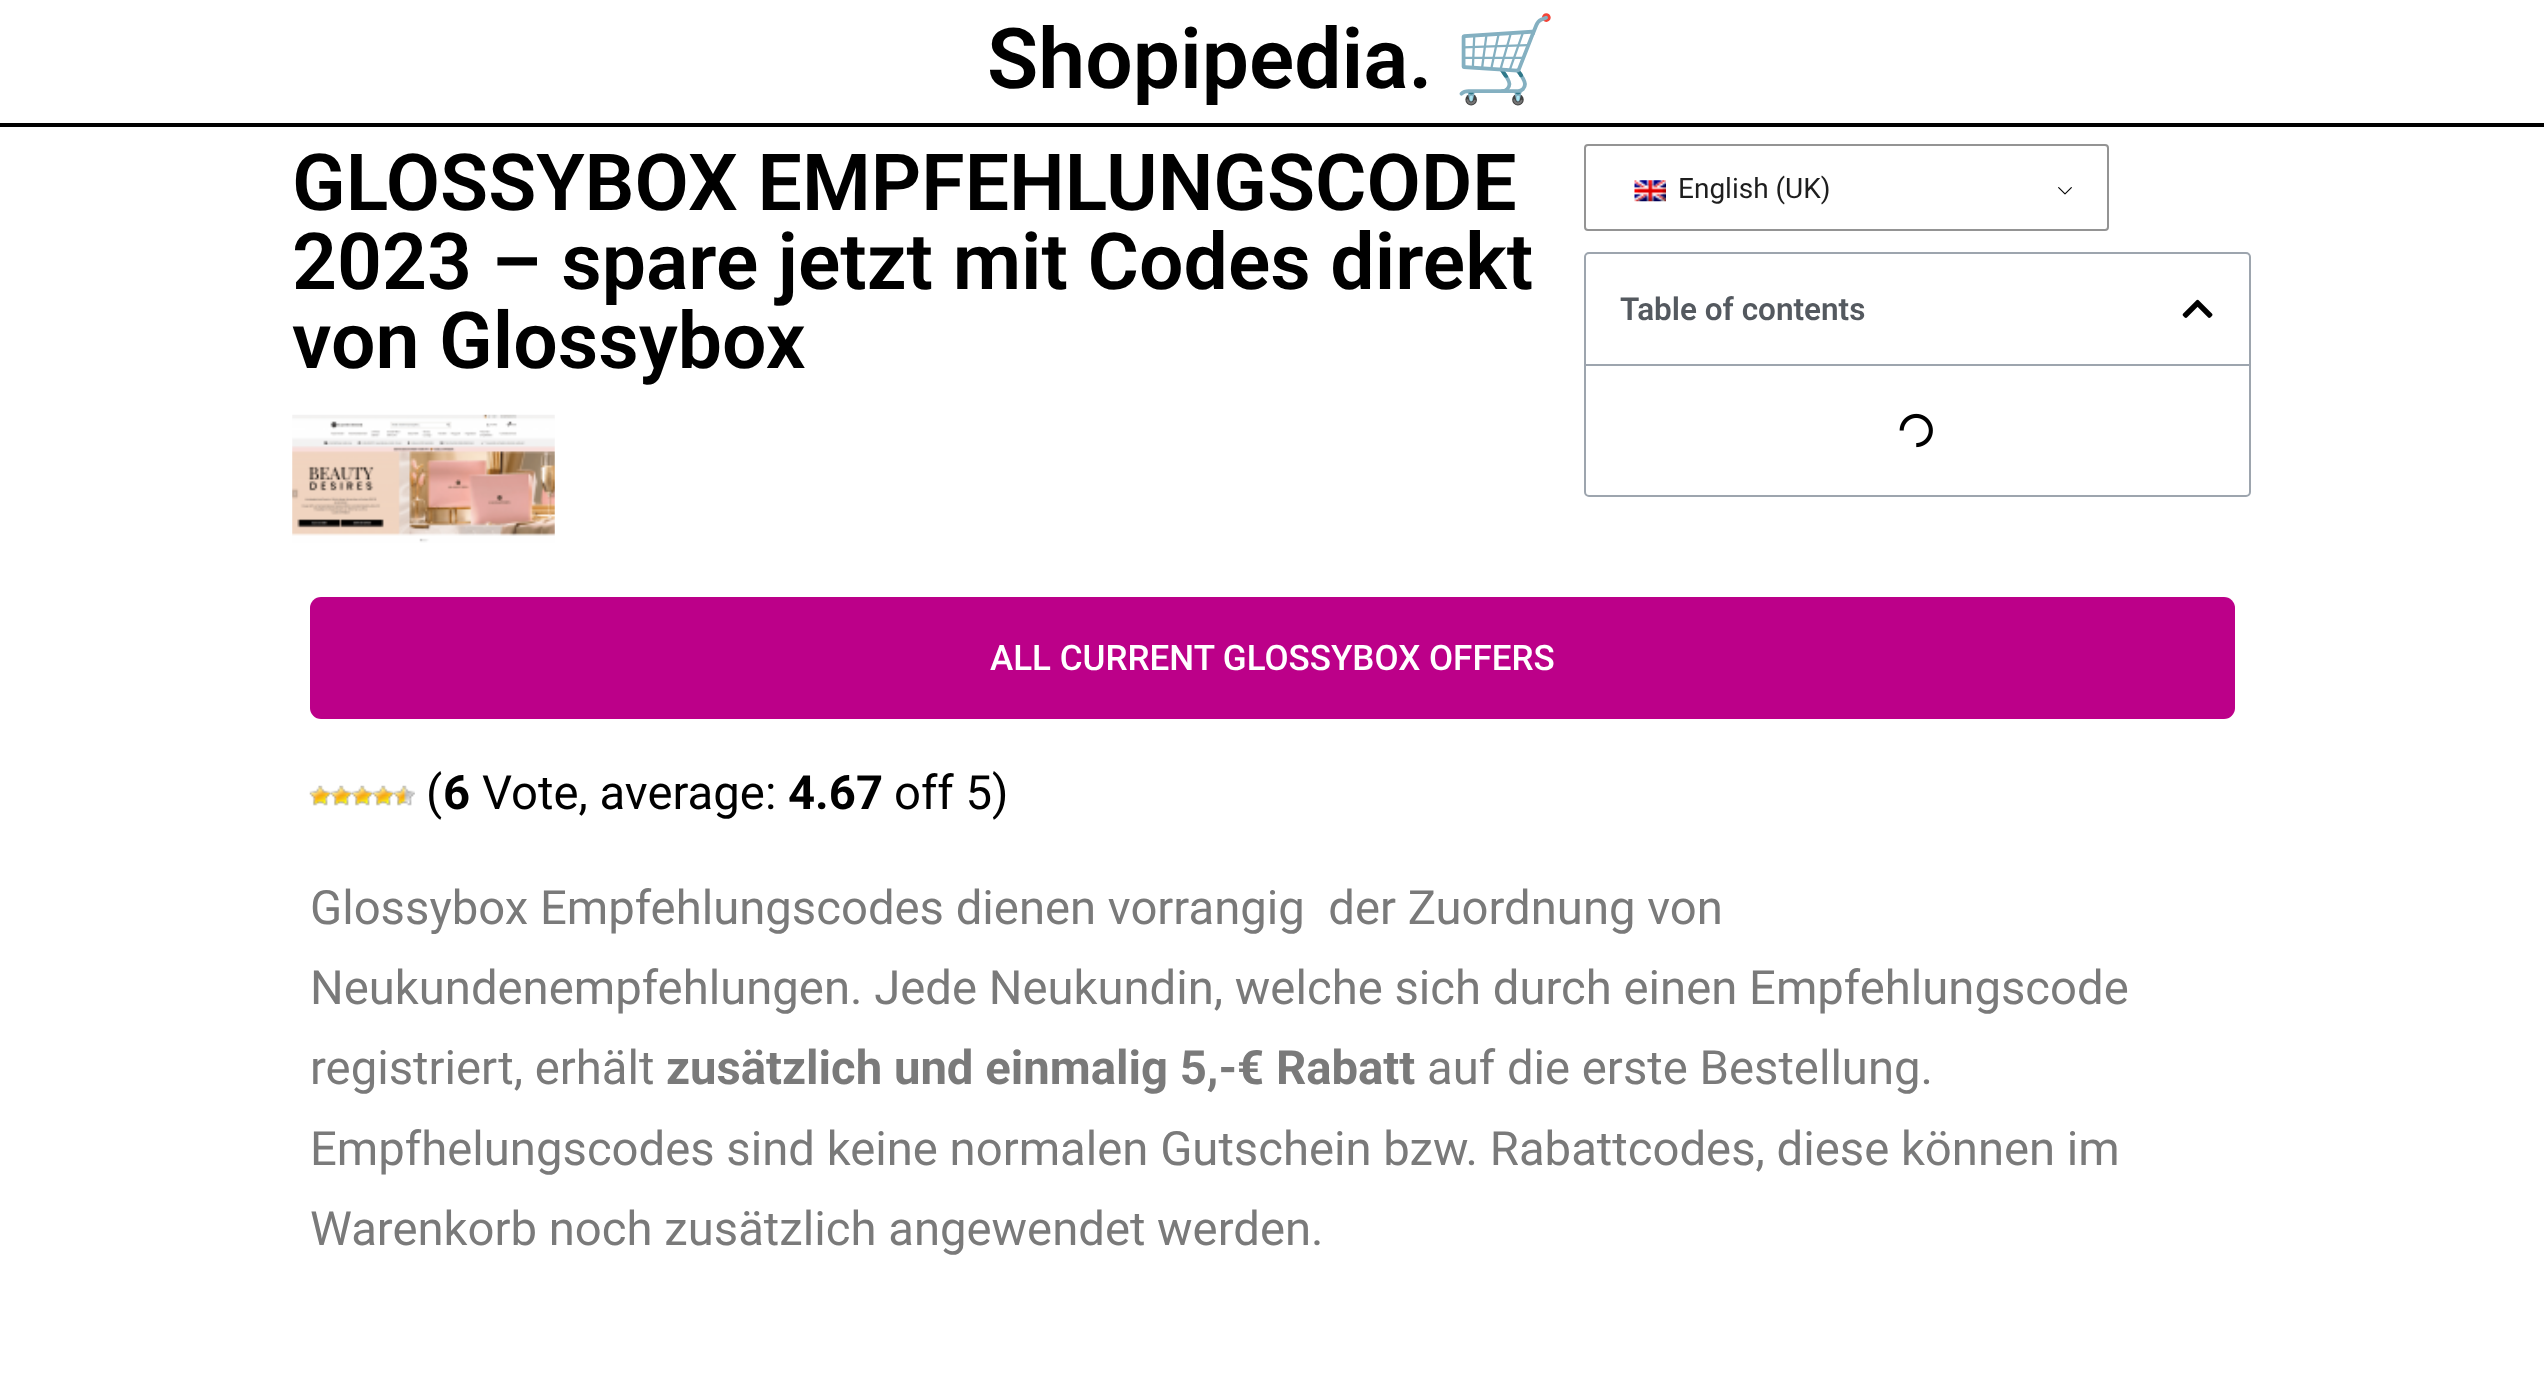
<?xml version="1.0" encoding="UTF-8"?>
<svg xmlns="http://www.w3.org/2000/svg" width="2544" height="1378">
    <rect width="100%" height="100%" fill="#FFFFFF"/>
    <rect x="0" y="123" width="2544" height="4" fill="#000000"/>
    <text x="987" y="88" font-family="Roboto" font-size="84" font-weight="600" fill="#000000">Shopipedia.</text>
    <text x="1453" y="88" font-family="Noto Color Emoji" font-size="84" font-weight="700" fill="#000000">🛒</text>
    <text font-family="Roboto" font-size="78.75" font-weight="600" fill="#000000">
        <tspan x="292" y="210">GLOSSYBOX EMPFEHLUNGSCODE</tspan>
        <tspan x="292" y="289">2023 – spare jetzt mit Codes direkt</tspan>
        <tspan x="292" y="368">von Glossybox</tspan>
    </text>
    <image x="292" y="414" width="263" height="129" href="img_01.png"/>
    <image x="2058" y="187" width="14" height="8" href="img_02.png"/>
    <rect x="1585" y="145" width="523" height="85" rx="3" fill="none" stroke="#949494" stroke-width="2"/>
    <image x="1634" y="180" width="32" height="22" href="img_03.png"/>
    <text x="1678" y="198" font-family="Roboto" font-size="28" fill="#1E1E1E">English (UK)</text>
    <rect x="1585" y="253" width="665" height="243" rx="4" fill="none" stroke="#9DA5AE" stroke-width="2"/>
    <rect x="1586" y="364" width="663" height="2" fill="#9DA5AE"/>
    <text x="1620" y="320" font-family="Roboto" font-size="31.5" font-weight="600" fill="#54595F">Table of contents</text>
    <image x="2182" y="299" width="31" height="19" href="img_04.png"/>
    <image x="1899" y="413" width="34" height="35" href="img_05.png"/>
    <rect x="310" y="597" width="1925" height="122" rx="11" fill="#BC0089"/>
    <text x="990" y="670" font-family="Roboto" font-size="35" font-weight="500" fill="#FFFFFF">ALL CURRENT GLOSSYBOX OFFERS</text>
    <image x="309" y="785" width="22" height="21" href="img_06.png"/>
    <image x="331" y="785" width="21" height="21" href="img_07.png"/>
    <image x="352" y="785" width="21" height="21" href="img_08.png"/>
    <image x="373" y="785" width="21" height="21" href="img_07.png"/>
    <image x="394" y="785" width="21" height="21" href="img_09.png"/>
    <text x="426" y="809" font-family="Roboto" font-size="47.25" fill="#000000">(</text>
    <text x="443" y="809" font-family="Roboto" font-size="47.25" font-weight="700" fill="#000000">6</text>
    <text x="482" y="809" font-family="Roboto" font-size="47.25" fill="#000000">Vote, average:</text>
    <text x="788" y="809" font-family="Roboto" font-size="47.25" font-weight="700" fill="#000000">4.67</text>
    <text x="894" y="809" font-family="Roboto" font-size="47.25" fill="#000000">off 5)</text>
    <text font-family="Roboto" font-size="47.25" fill="#7A7A7A" xml:space="preserve"><tspan x="310" y="924">Glossybox Empfehlungscodes dienen vorrangig  der Zuordnung von</tspan><tspan x="310" y="1004">Neukundenempfehlungen. Jede Neukundin, welche sich durch einen Empfehlungscode</tspan><tspan x="310" y="1084">registriert, erhält</tspan></text>
    <text x="666" y="1084" font-family="Roboto" font-size="47.25" font-weight="700" fill="#7A7A7A">zusätzlich und einmalig 5,-€ Rabatt</text>
    <text x="1427" y="1084" font-family="Roboto" font-size="47.25" fill="#7A7A7A">auf die erste Bestellung.</text>
    <text font-family="Roboto" font-size="47.25" fill="#7A7A7A">
        <tspan x="310" y="1165">Empfhelungscodes sind keine normalen Gutschein bzw. Rabattcodes, diese können im</tspan>
        <tspan x="310" y="1245">Warenkorb noch zusätzlich angewendet werden.</tspan>
    </text>
</svg>
